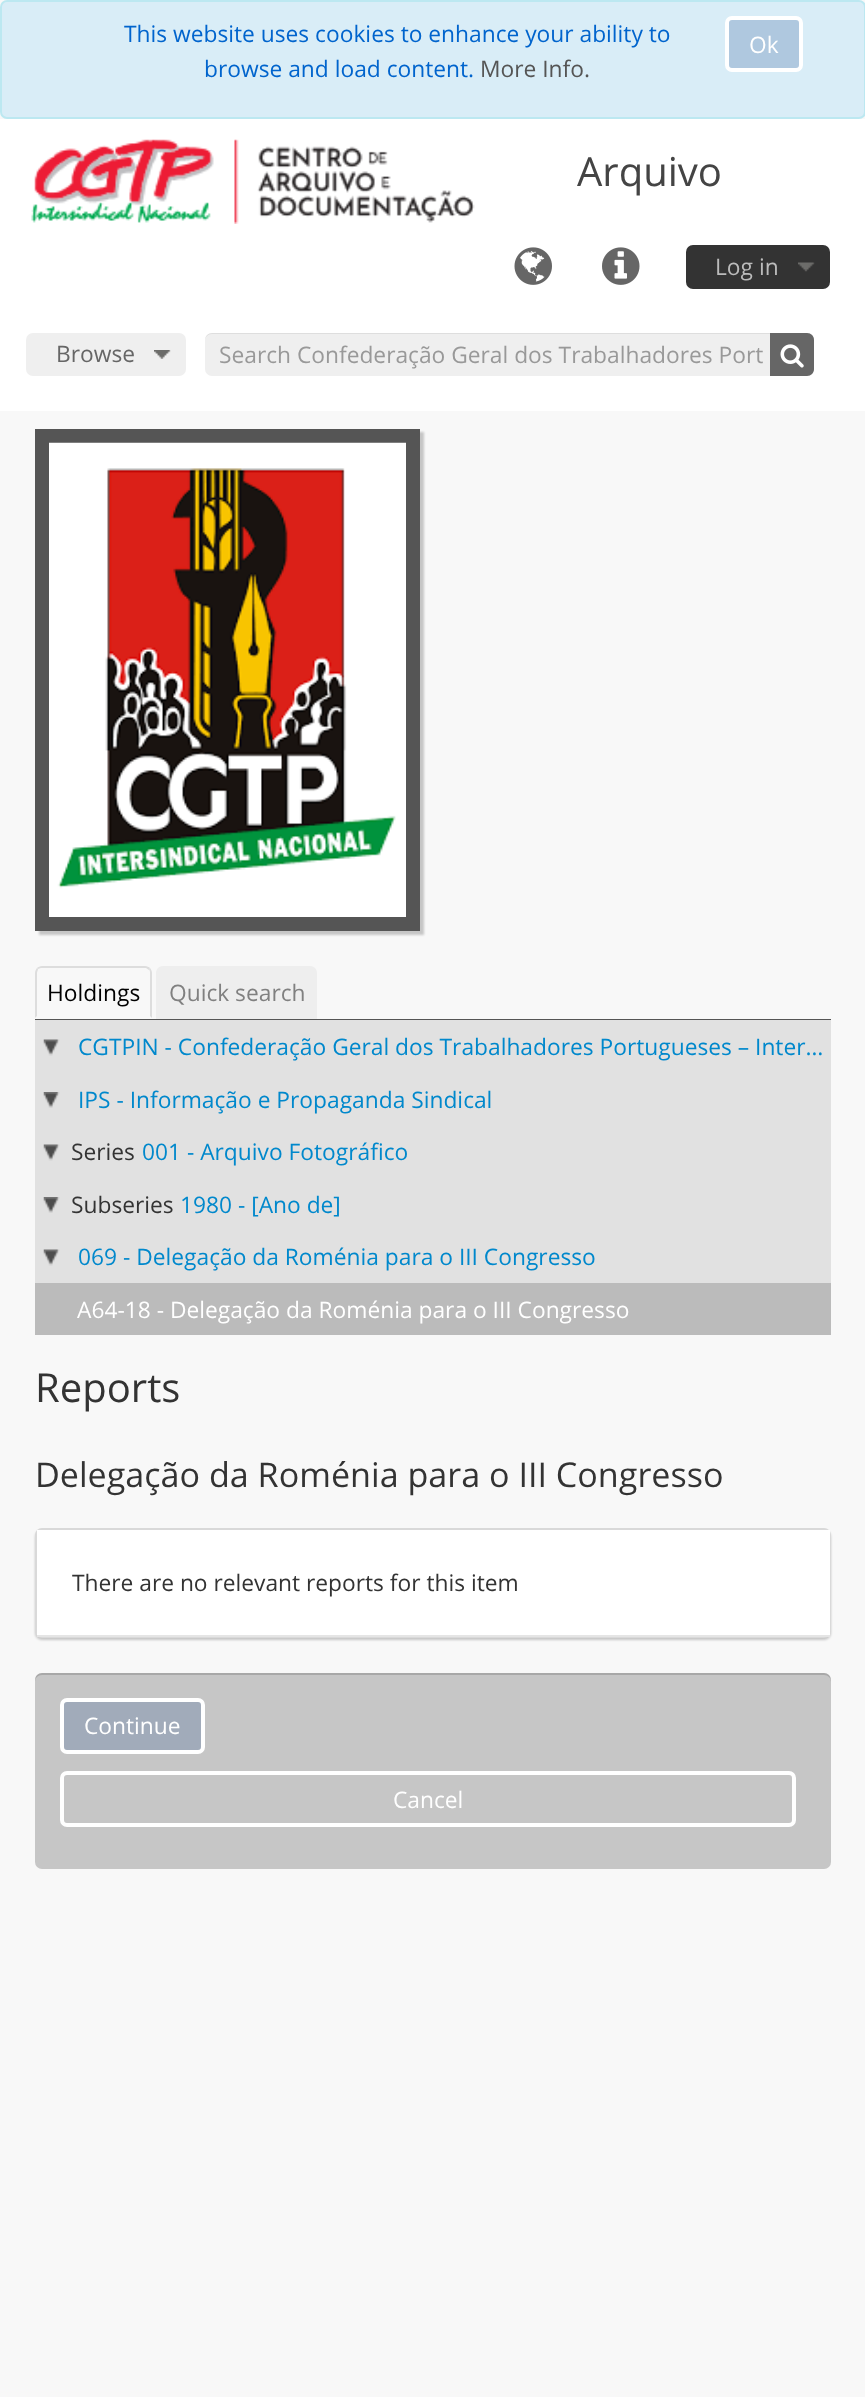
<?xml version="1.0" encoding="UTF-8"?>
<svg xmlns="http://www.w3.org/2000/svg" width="865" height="2397">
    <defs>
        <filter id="blur1" x="-50%" y="-200%" width="200%" height="500%"><feGaussianBlur stdDeviation="1"/></filter>
    </defs>
    <rect width="100%" height="100%" fill="#F8F8F8"/>
    <rect x="1" y="1" width="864" height="117" rx="6" fill="#D9EDF7" stroke="#BCE8F1" stroke-width="2"/>
    <text x="124" y="42" font-family="Open Sans" font-size="22.75" fill="#0064CD">This website uses cookies to enhance your ability to</text>
    <text x="204" y="77" font-family="Open Sans" font-size="22.75" fill="#0064CD">browse and load content.</text>
    <text x="480" y="77" font-family="Open Sans" font-size="22.75" fill="#555555">More Info.</text>
    <rect x="727" y="18" width="74" height="52" rx="5" fill="#AFC8DF" stroke="#FFFFFF" stroke-width="4"/>
    <text x="749" y="53" font-family="Open Sans" font-size="22.75" fill="#FFFFFF">Ok</text>
    <rect x="0" y="119" width="865" height="292" fill="#FFFFFF"/>
    <image x="31" y="139" width="444" height="85" href="img_01.png"/>
    <text x="577" y="186" font-family="Open Sans" font-size="40" fill="#444444">Arquivo</text>
    <image x="514" y="247" width="38" height="38" href="img_02.png"/>
    <image x="602" y="247" width="38" height="38" href="img_03.png"/>
    <rect x="686" y="245" width="144" height="44" rx="7" fill="#333333"/>
    <image x="798" y="262" width="17" height="10" href="img_04.png"/>
    <text x="715" y="275" font-family="Open Sans" font-size="22.75" fill="#BBBBBB">Log in</text>
    <rect x="26" y="333" width="160" height="43" rx="7" fill="#EFEFEF"/>
    <image x="154" y="350" width="17" height="9" href="img_05.png"/>
    <text x="56" y="362" font-family="Open Sans" font-size="22.75" fill="#666666">Browse</text>
    <rect x="205" y="333" width="609" height="43" rx="7" fill="#EFEFEF"/>
    <path d="M 212 334 H 807 C 811 334 814 337 814 341 V 340 C 814 336 811 333 807 333 H 212 C 208 333 205 336 205 340 V 341 C 205 337 208 334 212 334 Z" fill="#000000" fill-opacity="0.07"/>
    <text x="219" y="363" font-family="Open Sans" font-size="22.75" fill="#999999">Search Confederação Geral dos Trabalhadores Port</text>
    <path d="M 770 333 H 807 C 811 333 814 336 814 340 V 369 C 814 373 811 376 807 376 H 770 Z" fill="#666666"/>
    <image x="780" y="344" width="24" height="24" href="img_06.png"/>
    <rect x="39" y="432" width="385" height="503" fill="#191919" fill-opacity="0.2" filter="url(#blur1)"/>
    <rect x="35" y="429" width="385" height="502" fill="#555555"/>
    <image x="49" y="442" width="357" height="475" href="img_07.png"/>
    <rect x="35" y="1019" width="796" height="1" fill="#555555"/>
    <path d="M 42 966 C 40 966 38 967 37 968 L 38 969 L 41 968 H 146 L 149 970 L 150 968 C 149 967 147 966 145 966 Z" fill="#DDDDDD"/>
    <path d="M 150 968 C 151 969 152 971 152 973 V 1018 L 150 1016 V 973 C 150 972 150 970 149 970 Z" fill="#DDDDDD"/>
    <path d="M 35 973 V 1018 L 37 1016 V 973 C 37 972 38 970 38 969 L 37 968 C 36 969 35 971 35 973 Z" fill="#DDDDDD"/>
    <text x="47" y="1001" font-family="Open Sans" font-size="22.75" fill="#000000">Holdings</text>
    <path d="M 163 966 H 310 C 314 966 317 969 317 973 V 1019 H 156 V 973 C 156 969 159 966 163 966 Z" fill="#EEEEEE"/>
    <text x="169" y="1001" font-family="Open Sans" font-size="22.75" fill="#808080">Quick search</text>
    <rect x="35" y="1020" width="796" height="263" fill="#E1E1E1"/>
    <image x="43" y="1039" width="17" height="17" href="img_08.png"/>
    <text x="78" y="1055" font-family="Open Sans" font-size="22.75" fill="#0088CC">CGTPIN - Confederação Geral dos Trabalhadores Portugueses – Inter…</text>
    <image x="43" y="1092" width="17" height="16" href="img_09.png"/>
    <text x="78" y="1108" font-family="Open Sans" font-size="22.75" fill="#0088CC">IPS - Informação e Propaganda Sindical</text>
    <image x="43" y="1144" width="17" height="17" href="img_08.png"/>
    <text x="71" y="1160" font-family="Open Sans" font-size="22.75" fill="#333333">Series</text>
    <text x="142" y="1160" font-family="Open Sans" font-size="22.75" fill="#0088CC">001 - Arquivo Fotográfico</text>
    <image x="43" y="1197" width="17" height="16" href="img_09.png"/>
    <text x="71" y="1213" font-family="Open Sans" font-size="22.75" fill="#333333">Subseries</text>
    <text x="180" y="1213" font-family="Open Sans" font-size="22.75" fill="#0088CC">1980 - [Ano de]</text>
    <image x="43" y="1249" width="17" height="17" href="img_08.png"/>
    <text x="78" y="1265" font-family="Open Sans" font-size="22.75" fill="#0088CC">069 - Delegação da Roménia para o III Congresso</text>
    <rect x="35" y="1283" width="796" height="52" fill="#BBBBBB"/>
    <text x="77" y="1318" font-family="Open Sans" font-size="22.75" fill="#FFFFFF">A64-18 - Delegação da Roménia para o III Congresso</text>
    <text x="35" y="1402" font-family="Open Sans" font-size="40" fill="#333333">Reports</text>
    <text x="35" y="1487" font-family="Open Sans" font-size="34.1" fill="#333333">Delegação da Roménia para o III Congresso</text>
    <rect x="35" y="1530" width="796" height="110" rx="7" fill="#000000" fill-opacity="0.2" filter="url(#blur1)"/>
    <rect x="36" y="1529" width="794" height="108" rx="6" fill="none" stroke="#D9D9D9" stroke-width="2"/>
    <rect x="37" y="1530" width="793" height="105" fill="#FFFFFF"/>
    <rect x="37" y="1635" width="793" height="2" fill="#E5E5E5"/>
    <text x="72" y="1591" font-family="Open Sans" font-size="22.75" fill="#333333">There are no relevant reports for this item</text>
    <rect x="35" y="1673" width="796" height="196" rx="7" fill="#C6C6C6"/>
    <path d="M 42 1675 H 824 C 828 1675 831 1678 831 1682 V 1680 C 831 1676 828 1673 824 1673 H 42 C 38 1673 35 1676 35 1680 V 1682 C 35 1678 38 1675 42 1675 Z" fill="#000000" fill-opacity="0.15"/>
    <rect x="62" y="1700" width="141" height="52" rx="5" fill="#A1ABBA" stroke="#FFFFFF" stroke-width="4"/>
    <text x="84" y="1734" font-family="Open Sans" font-size="22.75" fill="#FFFFFF">Continue</text>
    <rect x="62" y="1773" width="732" height="52" rx="5" fill="none" stroke="#FFFFFF" stroke-width="4"/>
    <text x="393" y="1808" font-family="Open Sans" font-size="22.75" fill="#FFFFFF">Cancel</text>
</svg>
